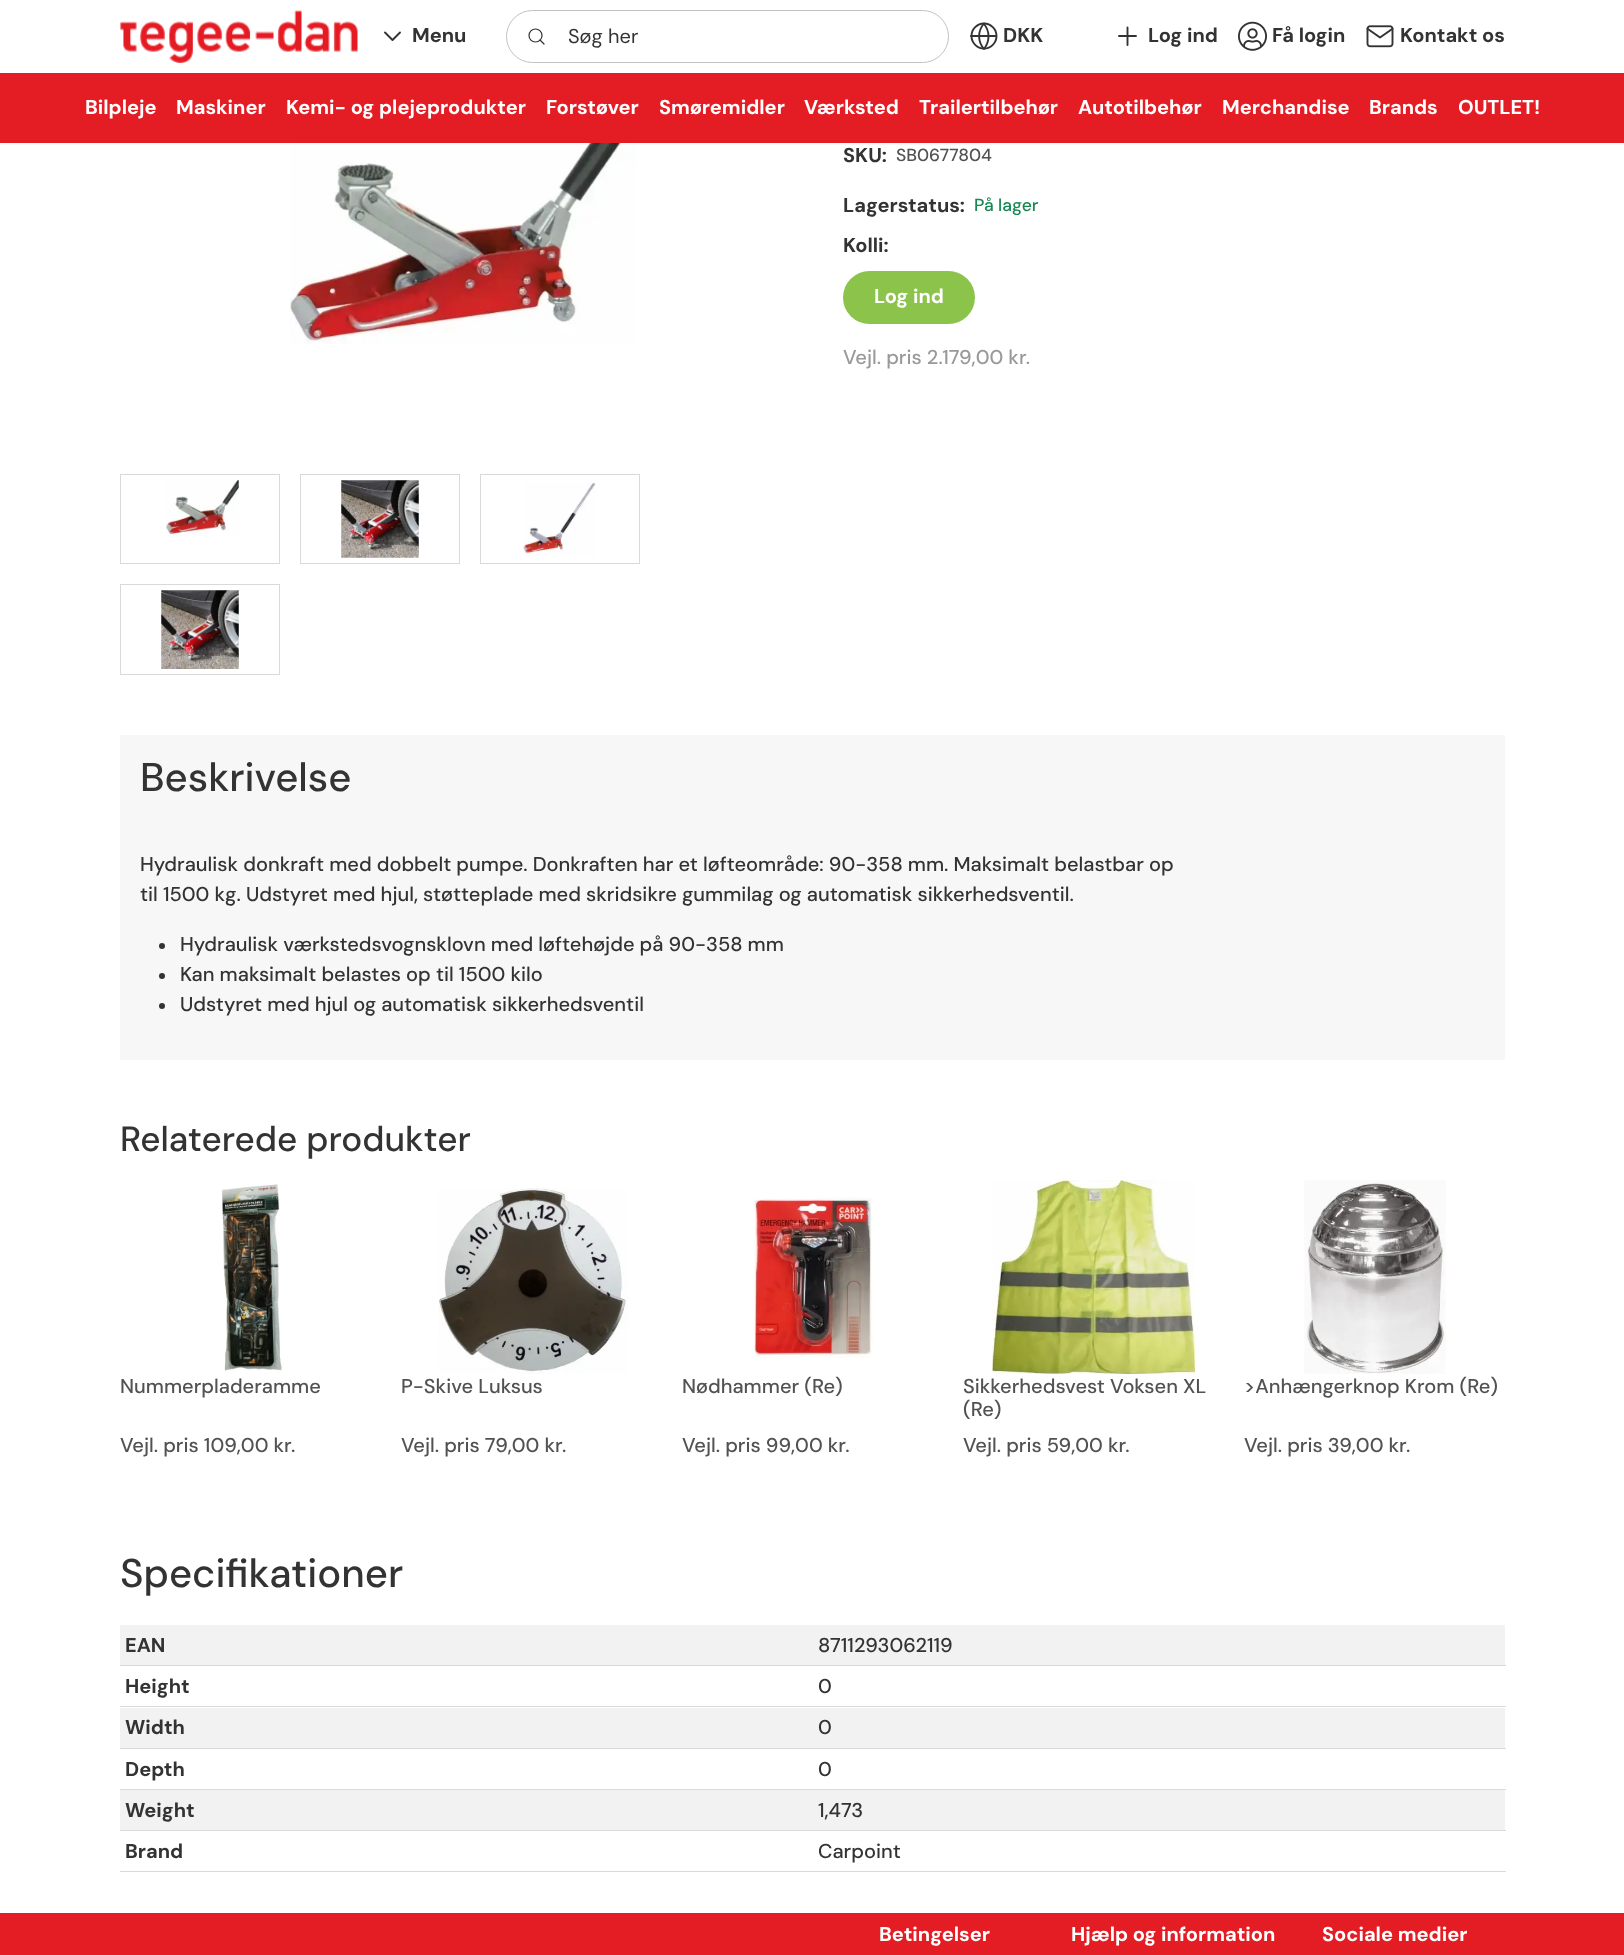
<?xml version="1.0" encoding="UTF-8"?>
<svg xmlns="http://www.w3.org/2000/svg" width="1624" height="1955">
    <rect width="100%" height="100%" fill="#FFFFFF"/>
    <image x="120" y="10" width="238" height="53" href="img_01.png"/>
    <path d="M 385 32.5 L 392.5 40 L 400 32.5" fill="none" stroke="#333333" stroke-width="1.9" stroke-linecap="round" stroke-linejoin="round"/>
    <text x="412" y="42" font-family="DM Sans" font-size="20" font-weight="700" fill="#333333">Menu</text>
    <rect x="506.5" y="10.5" width="442" height="52" rx="26" fill="none" stroke="#C2C2C2"/>
    <circle cx="535.5" cy="35.5" r="6.5" fill="none" stroke="#333333" stroke-width="1.2"/>
    <path d="M 544 44 L 540 40" fill="none" stroke="#333333" stroke-width="1.2" stroke-linecap="round" stroke-linejoin="round"/>
    <text x="568" y="43" font-family="DM Sans" font-size="20" fill="#333333">Søg her</text>
    <circle cx="984" cy="36" r="12.5" fill="none" stroke="#333333" stroke-width="1.9"/>
    <path d="M 971 36 H 996 M 984 24 C 990 31 990 41.5 984 49 C 977.5 41.5 977.5 31 984 23.5 Z" fill="none" stroke="#333333" stroke-width="1.9" stroke-linecap="round" stroke-linejoin="round"/>
    <text x="1003" y="42" font-family="DM Sans" font-size="20" font-weight="700" fill="#333333">DKK</text>
    <path d="M 1127.5 27.5 V 45 M 1119 36 H 1136" fill="none" stroke="#333333" stroke-width="1.9" stroke-linecap="round" stroke-linejoin="round"/>
    <text x="1148" y="42" font-family="DM Sans" font-size="20" font-weight="700" fill="#333333">Log ind</text>
    <image x="1238" y="21" width="29" height="30" href="img_02.png"/>
    <text x="1272" y="42" font-family="DM Sans" font-size="20" font-weight="700" fill="#333333">Få login</text>
    <image x="1366" y="25" width="28" height="23" href="img_03.png"/>
    <text x="1400" y="42" font-family="DM Sans" font-size="20" font-weight="700" fill="#333333">Kontakt os</text>
    <rect x="0" y="73" width="1624" height="70" fill="#E41C23"/>
    <text x="85" y="114" font-family="DM Sans" font-size="20" font-weight="700" fill="#FFFFFF">Bilpleje</text>
    <text x="176" y="114" font-family="DM Sans" font-size="20" font-weight="700" fill="#FFFFFF">Maskiner</text>
    <text x="286" y="114" font-family="DM Sans" font-size="20" font-weight="700" fill="#FFFFFF">Kemi- og plejeprodukter</text>
    <text x="546" y="114" font-family="DM Sans" font-size="20" font-weight="700" fill="#FFFFFF">Forstøver</text>
    <text x="659" y="114" font-family="DM Sans" font-size="20" font-weight="700" fill="#FFFFFF">Smøremidler</text>
    <text x="804" y="114" font-family="DM Sans" font-size="20" font-weight="700" fill="#FFFFFF">Værksted</text>
    <text x="919" y="114" font-family="DM Sans" font-size="20" font-weight="700" fill="#FFFFFF">Trailertilbehør</text>
    <text x="1078" y="114" font-family="DM Sans" font-size="20" font-weight="700" fill="#FFFFFF">Autotilbehør</text>
    <text x="1222" y="114" font-family="DM Sans" font-size="20" font-weight="700" fill="#FFFFFF">Merchandise</text>
    <text x="1369" y="114" font-family="DM Sans" font-size="20" font-weight="700" fill="#FFFFFF">Brands</text>
    <text x="1458" y="114" font-family="DM Sans" font-size="20" font-weight="700" fill="#FFFFFF">OUTLET!</text>
    <image x="290" y="143" width="347" height="201" href="img_04.png"/>
    <rect x="120.5" y="474.5" width="159" height="89" fill="none" stroke="#D9D9D9"/>
    <image x="166" y="480" width="73" height="56" href="img_05.png"/>
    <rect x="300.5" y="474.5" width="159" height="89" fill="none" stroke="#D9D9D9"/>
    <image x="341" y="480" width="78" height="78" href="img_06.png"/>
    <rect x="480.5" y="474.5" width="159" height="89" fill="none" stroke="#D9D9D9"/>
    <image x="523" y="482" width="73" height="75" href="img_07.png"/>
    <rect x="120.5" y="584.5" width="159" height="90" fill="none" stroke="#D9D9D9"/>
    <image x="161" y="590" width="78" height="79" href="img_08.png"/>
    <text x="843" y="162" font-family="DM Sans" font-size="20" font-weight="700" fill="#333333">SKU:</text>
    <text x="896" y="161" font-family="DM Sans" font-size="17.5" font-weight="500" fill="#525252">SB0677804</text>
    <text x="843" y="212" font-family="DM Sans" font-size="20" font-weight="700" fill="#333333">Lagerstatus:</text>
    <text x="974" y="211" font-family="DM Sans" font-size="17.5" font-weight="500" fill="#198754">På lager</text>
    <text x="843" y="252" font-family="DM Sans" font-size="20" font-weight="700" fill="#333333">Kolli:</text>
    <rect x="843" y="271" width="132" height="53" rx="26.5" fill="#8BC34B"/>
    <text x="874" y="303" font-family="DM Sans" font-size="20" font-weight="700" fill="#FFFFFF">Log ind</text>
    <text x="843" y="364" font-family="DM Sans" font-size="20" font-weight="500" fill="#999999">Vejl. pris 2.179,00 kr.</text>
    <rect x="120" y="735" width="1385" height="325" fill="#F7F7F7"/>
    <text x="140" y="791" font-family="DM Sans" font-size="40" font-weight="500" fill="#333333">Beskrivelse</text>
    <text font-family="DM Sans" font-size="20" font-weight="500" fill="#333333">
        <tspan x="140" y="871">Hydraulisk donkraft med dobbelt pumpe. Donkraften har et løfteområde: 90-358 mm. Maksimalt belastbar op</tspan>
        <tspan x="140" y="901">til 1500 kg. Udstyret med hjul, støtteplade med skridsikre gummilag og automatisk sikkerhedsventil.</tspan>
    </text>
    <circle cx="162" cy="946" r="3" fill="#333333"/>
    <text x="180" y="951" font-family="DM Sans" font-size="20" font-weight="500" fill="#333333">Hydraulisk værkstedsvognsklovn med løftehøjde på 90-358 mm</text>
    <circle cx="162" cy="976" r="3" fill="#333333"/>
    <text x="180" y="981" font-family="DM Sans" font-size="20" font-weight="500" fill="#333333">Kan maksimalt belastes op til 1500 kilo</text>
    <circle cx="162" cy="1006" r="3" fill="#333333"/>
    <text x="180" y="1011" font-family="DM Sans" font-size="20" font-weight="500" fill="#333333">Udstyret med hjul og automatisk sikkerhedsventil</text>
    <text x="120" y="1151" font-family="DM Sans" font-size="35" font-weight="500" fill="#333333">Relaterede produkter</text>
    <image x="222" y="1184" width="60" height="187" href="img_09.png"/>
    <text x="120" y="1393" font-family="DM Sans" font-size="20" font-weight="500" fill="#525252">Nummerpladeramme</text>
    <text x="120" y="1452" font-family="DM Sans" font-size="20" font-weight="500" fill="#525252">Vejl. pris 109,00 kr.</text>
    <image x="438" y="1188" width="190" height="186" href="img_10.png"/>
    <text x="401" y="1393" font-family="DM Sans" font-size="20" font-weight="500" fill="#525252">P-Skive Luksus</text>
    <text x="401" y="1452" font-family="DM Sans" font-size="20" font-weight="500" fill="#525252">Vejl. pris 79,00 kr.</text>
    <image x="754" y="1197" width="119" height="161" href="img_11.png"/>
    <text x="682" y="1393" font-family="DM Sans" font-size="20" font-weight="500" fill="#525252">Nødhammer (Re)</text>
    <text x="682" y="1452" font-family="DM Sans" font-size="20" font-weight="500" fill="#525252">Vejl. pris 99,00 kr.</text>
    <image x="992" y="1180" width="203" height="194" href="img_12.png"/>
    <text font-family="DM Sans" font-size="20" font-weight="500" fill="#525252">
        <tspan x="963" y="1393">Sikkerhedsvest Voksen XL</tspan>
        <tspan x="963" y="1416">(Re)</tspan>
        <tspan x="963" y="1452">Vejl. pris 59,00 kr.</tspan>
    </text>
    <image x="1304" y="1180" width="142" height="194" href="img_13.png"/>
    <text x="1244" y="1393" font-family="DM Sans" font-size="20" font-weight="500" fill="#525252">&gt;Anhængerknop Krom (Re)</text>
    <text x="1244" y="1452" font-family="DM Sans" font-size="20" font-weight="500" fill="#525252">Vejl. pris 39,00 kr.</text>
    <text x="120" y="1587" font-family="DM Sans" font-size="40" font-weight="500" fill="#333333">Specifikationer</text>
    <rect x="120" y="1625" width="1385" height="40" fill="#F2F2F2"/>
    <text x="125" y="1652" font-family="DM Sans" font-size="20" font-weight="700" fill="#333333">EAN</text>
    <rect x="120" y="1665" width="1386" height="1" fill="#D9D9D9"/>
    <text x="818" y="1652" font-family="DM Sans" font-size="20" font-weight="500" fill="#333333">8711293062119</text>
    <text x="125" y="1693" font-family="DM Sans" font-size="20" font-weight="700" fill="#333333">Height</text>
    <rect x="120" y="1706" width="1386" height="1" fill="#D9D9D9"/>
    <text x="818" y="1693" font-family="DM Sans" font-size="20" font-weight="500" fill="#333333">0</text>
    <rect x="120" y="1708" width="1385" height="40" fill="#F2F2F2"/>
    <text x="125" y="1734" font-family="DM Sans" font-size="20" font-weight="700" fill="#333333">Width</text>
    <rect x="120" y="1748" width="1386" height="1" fill="#D9D9D9"/>
    <text x="818" y="1734" font-family="DM Sans" font-size="20" font-weight="500" fill="#333333">0</text>
    <text x="125" y="1776" font-family="DM Sans" font-size="20" font-weight="700" fill="#333333">Depth</text>
    <rect x="120" y="1789" width="1386" height="1" fill="#D9D9D9"/>
    <text x="818" y="1776" font-family="DM Sans" font-size="20" font-weight="500" fill="#333333">0</text>
    <rect x="120" y="1790" width="1385" height="40" fill="#F2F2F2"/>
    <text x="125" y="1817" font-family="DM Sans" font-size="20" font-weight="700" fill="#333333">Weight</text>
    <rect x="120" y="1830" width="1386" height="1" fill="#D9D9D9"/>
    <text x="818" y="1817" font-family="DM Sans" font-size="20" font-weight="500" fill="#333333">1,473</text>
    <text x="125" y="1858" font-family="DM Sans" font-size="20" font-weight="700" fill="#333333">Brand</text>
    <rect x="120" y="1871" width="1386" height="1" fill="#D9D9D9"/>
    <text x="818" y="1858" font-family="DM Sans" font-size="20" font-weight="500" fill="#333333">Carpoint</text>
    <rect x="0" y="1913" width="1624" height="42" fill="#E41C23"/>
    <text x="879" y="1941" font-family="DM Sans" font-size="20" font-weight="700" fill="#FFFFFF">Betingelser</text>
    <text x="1071" y="1941" font-family="DM Sans" font-size="20" font-weight="700" fill="#FFFFFF">Hjælp og information</text>
    <text x="1322" y="1941" font-family="DM Sans" font-size="20" font-weight="700" fill="#FFFFFF">Sociale medier</text>
</svg>
